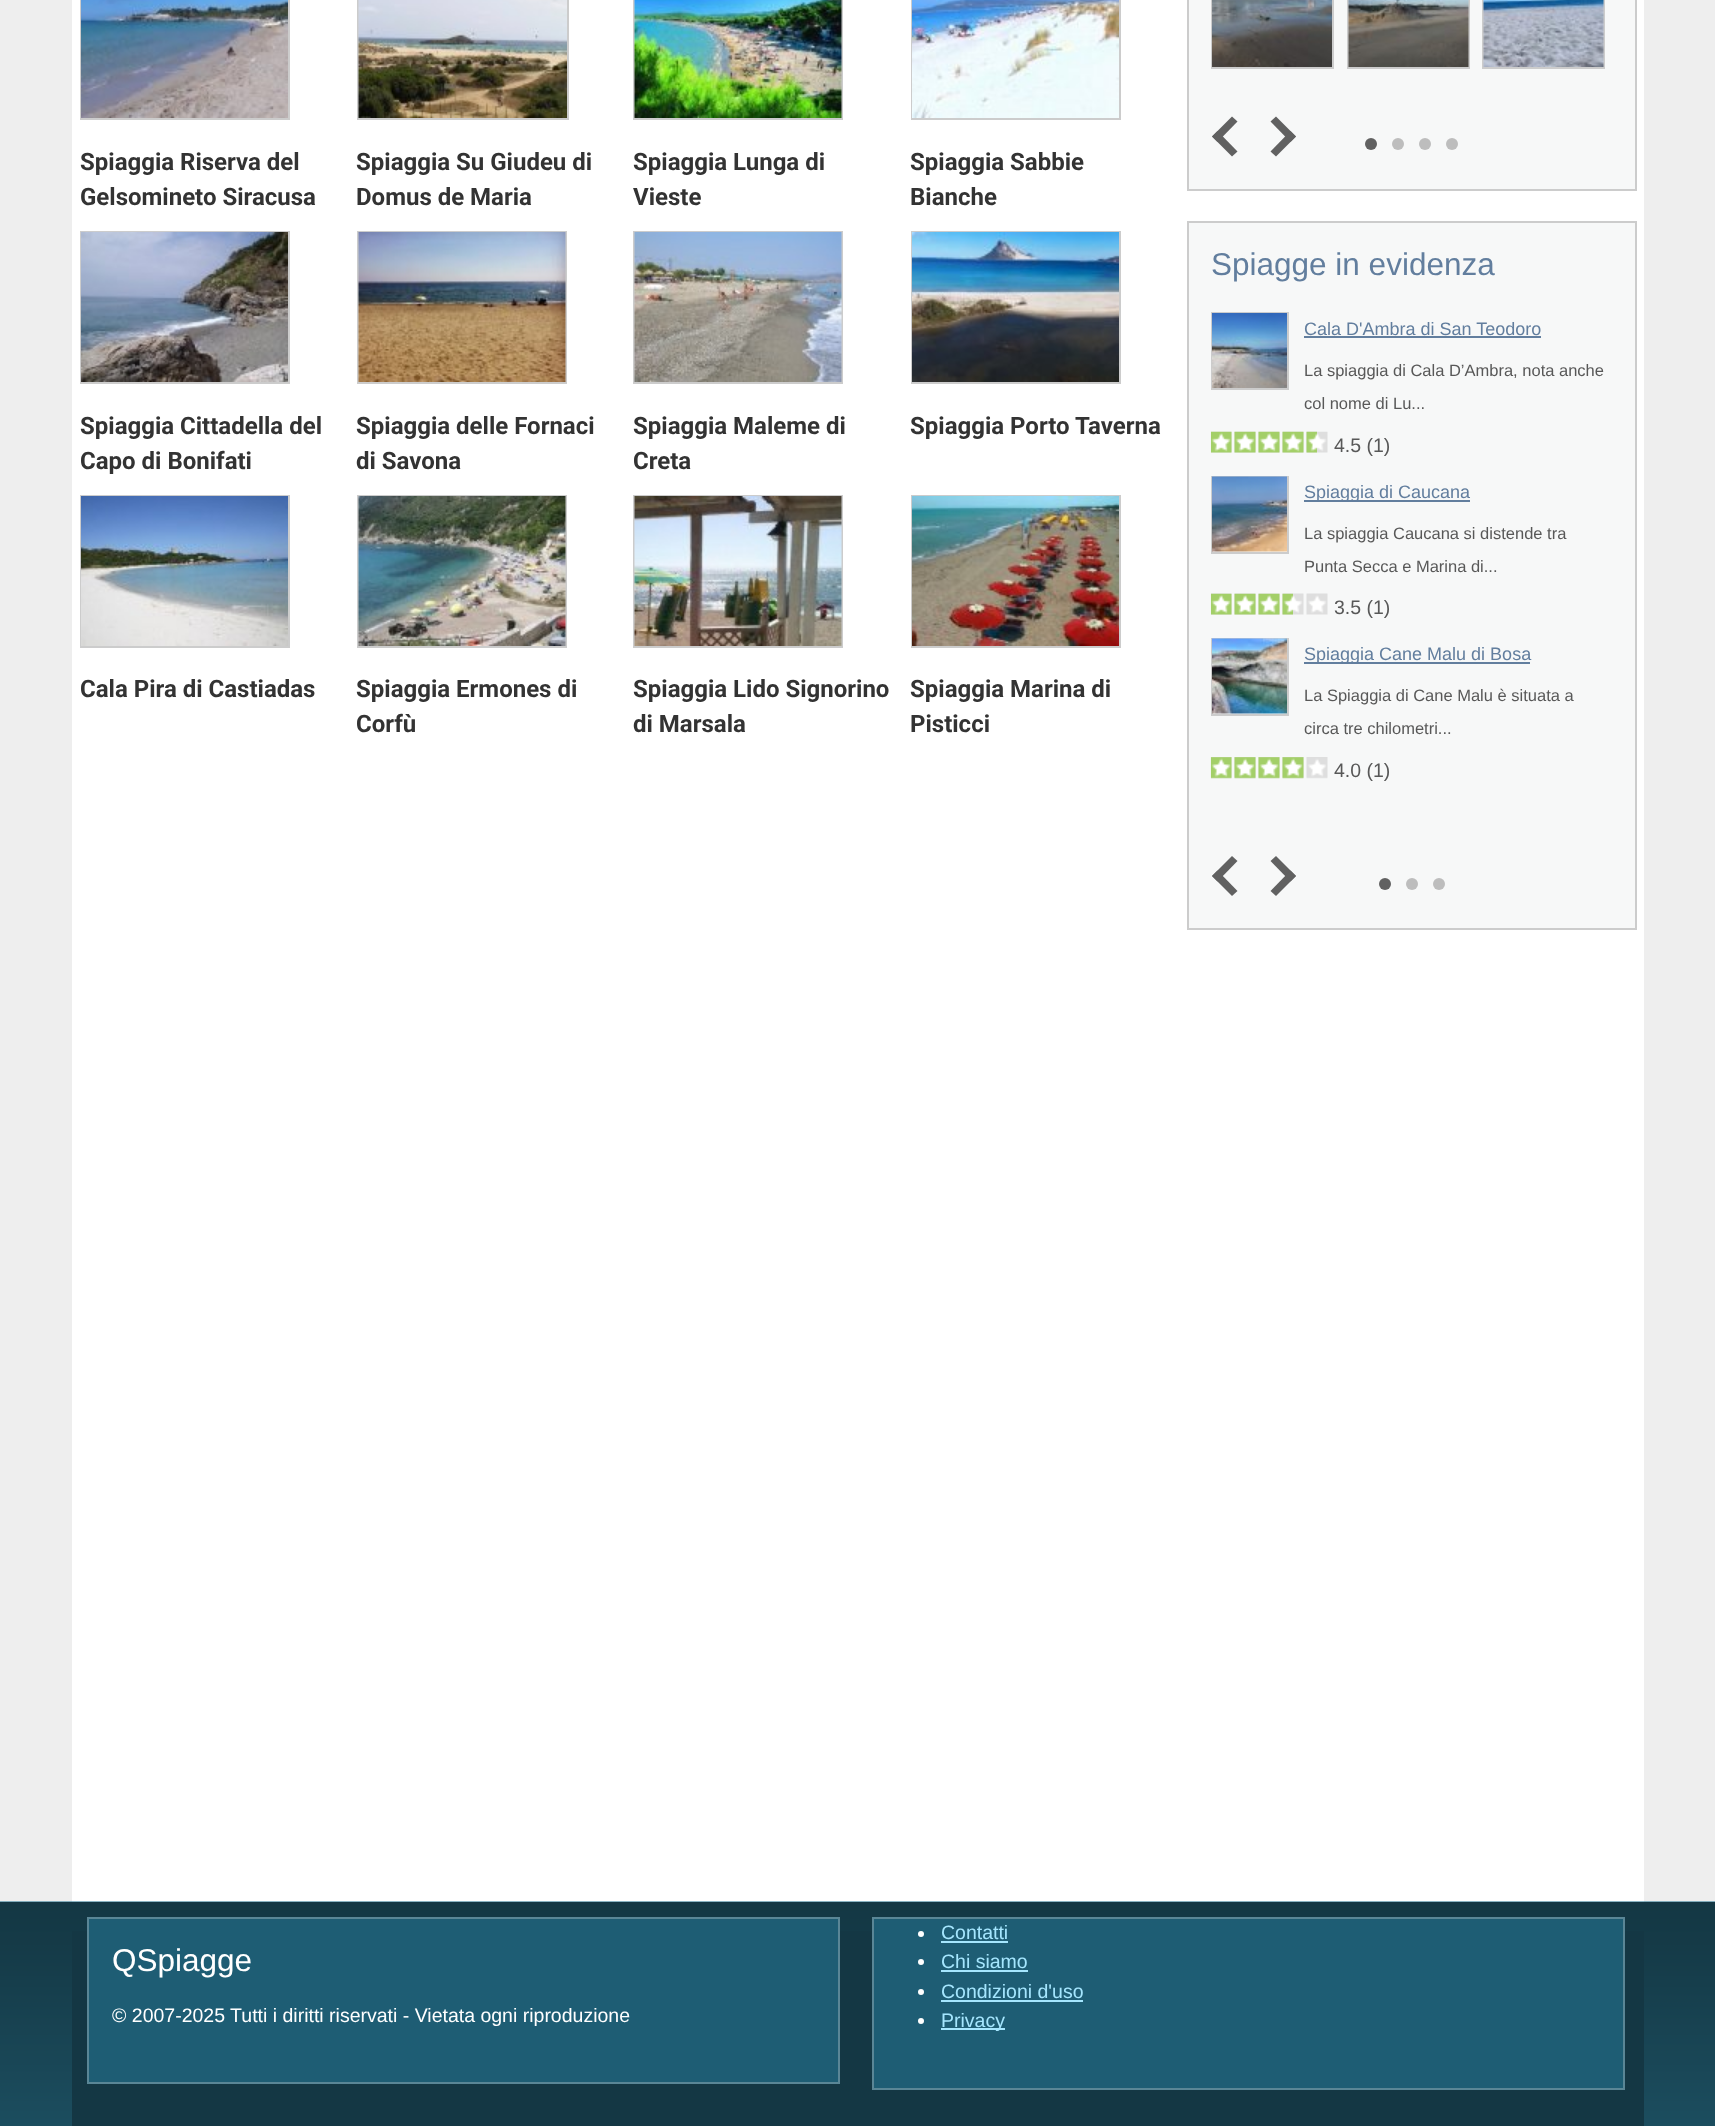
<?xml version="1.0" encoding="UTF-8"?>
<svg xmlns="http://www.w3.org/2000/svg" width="1715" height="2126">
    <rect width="100%" height="100%" fill="#EEEEEE"/>
    <rect x="72" y="0" width="1572" height="1902" fill="#FFFFFF"/>
    <rect x="81" y="-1" width="208" height="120" fill="none" stroke="#CCCCCC" stroke-width="2"/>
    <image x="81" y="0" width="207" height="118" href="img_01.png"/>
    <text font-family="Roboto" font-size="24" font-weight="700" fill="#333333">
        <tspan x="80" y="170">Spiaggia Riserva del</tspan>
        <tspan x="80" y="205">Gelsomineto Siracusa</tspan>
    </text>
    <rect x="358" y="-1" width="210" height="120" fill="none" stroke="#CCCCCC" stroke-width="2"/>
    <image x="358" y="0" width="209" height="118" href="img_02.png"/>
    <text font-family="Roboto" font-size="24" font-weight="700" fill="#333333">
        <tspan x="356" y="170">Spiaggia Su Giudeu di</tspan>
        <tspan x="356" y="205">Domus de Maria</tspan>
    </text>
    <rect x="634" y="-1" width="208" height="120" fill="none" stroke="#CCCCCC" stroke-width="2"/>
    <image x="634" y="0" width="208" height="118" href="img_03.png"/>
    <text font-family="Roboto" font-size="24" font-weight="700" fill="#333333">
        <tspan x="633" y="170">Spiaggia Lunga di</tspan>
        <tspan x="633" y="205">Vieste</tspan>
    </text>
    <rect x="912" y="-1" width="208" height="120" fill="none" stroke="#CCCCCC" stroke-width="2"/>
    <image x="912" y="0" width="207" height="118" href="img_04.png"/>
    <text font-family="Roboto" font-size="24" font-weight="700" fill="#333333">
        <tspan x="910" y="170">Spiaggia Sabbie</tspan>
        <tspan x="910" y="205">Bianche</tspan>
    </text>
    <rect x="81" y="232" width="208" height="151" fill="none" stroke="#CCCCCC" stroke-width="2"/>
    <image x="81" y="232" width="207" height="150" href="img_05.png"/>
    <text font-family="Roboto" font-size="24" font-weight="700" fill="#333333">
        <tspan x="80" y="434">Spiaggia Cittadella del</tspan>
        <tspan x="80" y="469">Capo di Bonifati</tspan>
    </text>
    <rect x="358" y="232" width="208" height="151" fill="none" stroke="#CCCCCC" stroke-width="2"/>
    <image x="358" y="232" width="208" height="150" href="img_06.png"/>
    <text font-family="Roboto" font-size="24" font-weight="700" fill="#333333">
        <tspan x="356" y="434">Spiaggia delle Fornaci</tspan>
        <tspan x="356" y="469">di Savona</tspan>
    </text>
    <rect x="634" y="232" width="208" height="151" fill="none" stroke="#CCCCCC" stroke-width="2"/>
    <image x="634" y="232" width="208" height="150" href="img_07.png"/>
    <text font-family="Roboto" font-size="24" font-weight="700" fill="#333333">
        <tspan x="633" y="434">Spiaggia Maleme di</tspan>
        <tspan x="633" y="469">Creta</tspan>
    </text>
    <rect x="912" y="232" width="208" height="151" fill="none" stroke="#CCCCCC" stroke-width="2"/>
    <image x="912" y="232" width="207" height="150" href="img_08.png"/>
    <text x="910" y="434" font-family="Roboto" font-size="24" font-weight="700" fill="#333333">Spiaggia Porto Taverna</text>
    <rect x="81" y="496" width="208" height="151" fill="none" stroke="#CCCCCC" stroke-width="2"/>
    <image x="81" y="496" width="207" height="150" href="img_09.png"/>
    <text x="80" y="697" font-family="Roboto" font-size="24" font-weight="700" fill="#333333">Cala Pira di Castiadas</text>
    <rect x="358" y="496" width="208" height="151" fill="none" stroke="#CCCCCC" stroke-width="2"/>
    <image x="358" y="496" width="208" height="150" href="img_10.png"/>
    <text font-family="Roboto" font-size="24" font-weight="700" fill="#333333">
        <tspan x="356" y="697">Spiaggia Ermones di</tspan>
        <tspan x="356" y="732">Corfù</tspan>
    </text>
    <rect x="634" y="496" width="208" height="151" fill="none" stroke="#CCCCCC" stroke-width="2"/>
    <image x="634" y="496" width="208" height="150" href="img_11.png"/>
    <text font-family="Roboto" font-size="24" font-weight="700" fill="#333333">
        <tspan x="633" y="697">Spiaggia Lido Signorino</tspan>
        <tspan x="633" y="732">di Marsala</tspan>
    </text>
    <rect x="912" y="496" width="208" height="151" fill="none" stroke="#CCCCCC" stroke-width="2"/>
    <image x="912" y="496" width="207" height="150" href="img_12.png"/>
    <text font-family="Roboto" font-size="24" font-weight="700" fill="#333333">
        <tspan x="910" y="697">Spiaggia Marina di</tspan>
        <tspan x="910" y="732">Pisticci</tspan>
    </text>
    <rect x="1188" y="-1" width="448" height="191" fill="#F7F8F8" stroke="#CCCCCC" stroke-width="2"/>
    <rect x="1212" y="-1" width="121" height="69" fill="none" stroke="#CCCCCC" stroke-width="2"/>
    <image x="1212" y="0" width="120" height="67" href="img_13.png"/>
    <rect x="1348" y="-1" width="121" height="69" fill="none" stroke="#CCCCCC" stroke-width="2"/>
    <image x="1348" y="0" width="121" height="67" href="img_14.png"/>
    <rect x="1483" y="-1" width="121" height="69" fill="none" stroke="#CCCCCC" stroke-width="2"/>
    <image x="1483" y="0" width="121" height="67" href="img_15.png"/>
    <path d="M 1237.5 151.5 L 1232 156.5 L 1212 136.5 L 1217.5 131 Z" fill="#616161"/>
    <path d="M 1237.5 121.5 L 1217.5 142 L 1212 136.5 L 1232 116.5 Z" fill="#616161"/>
    <path d="M 1270.5 121.5 L 1276 116.5 L 1296 136.5 L 1290.5 142 Z" fill="#616161"/>
    <path d="M 1270.5 151.5 L 1290.5 131 L 1296 136.5 L 1276 156.5 Z" fill="#616161"/>
    <circle cx="1371" cy="144" r="6" fill="#616161"/>
    <circle cx="1398" cy="144" r="6" fill="#BDBDBD"/>
    <circle cx="1425" cy="144" r="6" fill="#BDBDBD"/>
    <circle cx="1452" cy="144" r="6" fill="#BDBDBD"/>
    <rect x="1188" y="222" width="448" height="707" fill="#F7F8F8" stroke="#CCCCCC" stroke-width="2"/>
    <text x="1211" y="275" font-family="Liberation Sans" font-size="31.5" fill="#627E9E">Spiagge in evidenza</text>
    <rect x="1212" y="313" width="76" height="76" fill="none" stroke="#CCCCCC" stroke-width="2"/>
    <image x="1212" y="313" width="75" height="75" href="img_16.png"/>
    <text x="1304" y="335" font-family="Liberation Sans" font-size="18" fill="#627E9E">Cala D'Ambra di San Teodoro</text>
    <rect x="1304" y="336" width="237" height="2" fill="#627E9E"/>
    <text x="1304" y="376" font-family="Liberation Sans" font-size="16.5" fill="#585858">La spiaggia di Cala D’Ambra, nota anche</text>
    <text x="1304" y="409" font-family="Liberation Sans" font-size="16.5" fill="#585858">col nome di Lu...</text>
    <image x="1211" y="431" width="117" height="22" href="img_17.png"/>
    <image x="1210" y="431" width="107" height="22" href="img_18.png"/>
    <text x="1334" y="452" font-family="Liberation Sans" font-size="19.5" fill="#585858">4.5 (1)</text>
    <rect x="1212" y="477" width="76" height="76" fill="none" stroke="#CCCCCC" stroke-width="2"/>
    <image x="1212" y="476" width="75" height="76" href="img_19.png"/>
    <rect x="1304" y="500" width="166" height="2" fill="#627E9E"/>
    <text x="1304" y="498" font-family="Liberation Sans" font-size="18" fill="#627E9E">Spiaggia di Caucana</text>
    <text x="1304" y="539" font-family="Liberation Sans" font-size="16.5" fill="#585858">La spiaggia Caucana si distende tra</text>
    <text x="1304" y="572" font-family="Liberation Sans" font-size="16.5" fill="#585858">Punta Secca e Marina di...</text>
    <image x="1211" y="593" width="117" height="22" href="img_20.png"/>
    <image x="1210" y="593" width="83" height="22" href="img_21.png"/>
    <text x="1334" y="614" font-family="Liberation Sans" font-size="19.5" fill="#585858">3.5 (1)</text>
    <rect x="1212" y="639" width="76" height="76" fill="none" stroke="#CCCCCC" stroke-width="2"/>
    <image x="1212" y="638" width="75" height="76" href="img_22.png"/>
    <rect x="1304" y="662" width="226" height="2" fill="#627E9E"/>
    <text x="1304" y="660" font-family="Liberation Sans" font-size="18" fill="#627E9E">Spiaggia Cane Malu di Bosa</text>
    <text x="1304" y="701" font-family="Liberation Sans" font-size="16.5" fill="#585858">La Spiaggia di Cane Malu è situata a</text>
    <text x="1304" y="734" font-family="Liberation Sans" font-size="16.5" fill="#585858">circa tre chilometri...</text>
    <image x="1211" y="757" width="117" height="22" href="img_23.png"/>
    <image x="1210" y="757" width="94" height="22" href="img_24.png"/>
    <text x="1334" y="777" font-family="Liberation Sans" font-size="19.5" fill="#585858">4.0 (1)</text>
    <path d="M 1237.5 891 L 1232 896 L 1212 876 L 1217.5 870.5 Z" fill="#616161"/>
    <path d="M 1237.5 861 L 1217.5 881.5 L 1212 876 L 1232 856 Z" fill="#616161"/>
    <path d="M 1270.5 861 L 1276 856 L 1296 876 L 1290.5 881.5 Z" fill="#616161"/>
    <path d="M 1270.5 891 L 1290.5 870.5 L 1296 876 L 1276 896 Z" fill="#616161"/>
    <circle cx="1385" cy="884" r="6" fill="#616161"/>
    <circle cx="1412" cy="884" r="6" fill="#BDBDBD"/>
    <circle cx="1439" cy="884" r="6" fill="#BDBDBD"/>
    <image x="0" y="1901" width="1715" height="225" href="img_25.png"/>
    <rect x="72" y="1931" width="1572" height="195" fill="#143744"/>
    <rect x="88" y="1918" width="751" height="165" fill="#1E5D74" stroke="#5A8696" stroke-width="2"/>
    <text x="112" y="1971" font-family="Liberation Sans" font-size="31.5" fill="#FFFFFF">QSpiagge</text>
    <text x="112" y="2022" font-family="Liberation Sans" font-size="19.5" fill="#FFFFFF">© 2007-2025 Tutti i diritti riservati - Vietata ogni riproduzione</text>
    <rect x="873" y="1918" width="751" height="171" fill="#1E5D74" stroke="#5A8696" stroke-width="2"/>
    <circle cx="921" cy="1934" r="3" fill="#FFFFFF"/>
    <text x="941" y="1939" font-family="Liberation Sans" font-size="19.5" fill="#A5E6FE">Contatti</text>
    <rect x="941" y="1941" width="67" height="2" fill="#A5E6FE"/>
    <circle cx="921" cy="1962" r="3" fill="#FFFFFF"/>
    <text x="941" y="1968" font-family="Liberation Sans" font-size="19.5" fill="#A5E6FE">Chi siamo</text>
    <rect x="941" y="1970" width="87" height="2" fill="#A5E6FE"/>
    <circle cx="921" cy="1992" r="3" fill="#FFFFFF"/>
    <text x="941" y="1998" font-family="Liberation Sans" font-size="19.5" fill="#A5E6FE">Condizioni d'uso</text>
    <rect x="941" y="2000" width="142" height="2" fill="#A5E6FE"/>
    <circle cx="921" cy="2021" r="3" fill="#FFFFFF"/>
    <rect x="941" y="2028" width="64" height="2" fill="#A5E6FE"/>
    <text x="941" y="2027" font-family="Liberation Sans" font-size="19.5" fill="#A5E6FE">Privacy</text>
</svg>
